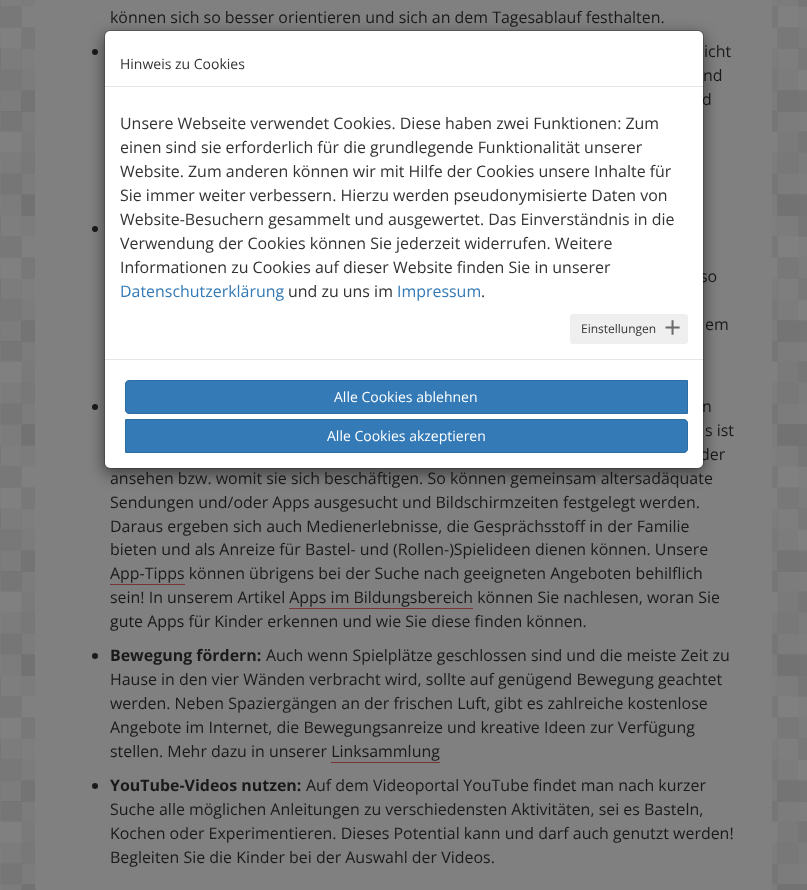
<?xml version="1.0" encoding="UTF-8"?>
<svg xmlns="http://www.w3.org/2000/svg" width="807" height="890">
    <defs>
        <filter id="blur1" x="-50%" y="-200%" width="200%" height="500%"><feGaussianBlur stdDeviation="7.5"/></filter>
    </defs>
    <rect width="100%" height="100%" fill="#808080"/>
    <image x="0" y="0" width="807" height="890" href="img_01.png"/>
    <rect x="35" y="-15" width="737" height="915" rx="15" fill="#808080"/>
    <text x="110" y="23" font-family="Open Sans" font-size="15.95" fill="#1A1A1A">können sich so besser orientieren und sich an dem Tagesablauf festhalten.</text>
    <circle cx="95" cy="52" r="3" fill="#1A1A1A"/>
    <text x="704" y="57" font-family="Open Sans" font-size="15.95" fill="#1A1A1A">icht</text>
    <text x="703" y="81" font-family="Open Sans" font-size="15.95" fill="#1A1A1A">nd</text>
    <text x="702" y="105" font-family="Open Sans" font-size="15.95" fill="#1A1A1A">d</text>
    <circle cx="95" cy="229" r="3" fill="#1A1A1A"/>
    <text x="700" y="282" font-family="Open Sans" font-size="15.95" fill="#1A1A1A">so</text>
    <text x="705" y="330" font-family="Open Sans" font-size="15.95" fill="#1A1A1A">em</text>
    <circle cx="95" cy="407" r="3" fill="#1A1A1A"/>
    <text x="702" y="412" font-family="Open Sans" font-size="15.95" fill="#1A1A1A">n</text>
    <text x="705" y="436" font-family="Open Sans" font-size="15.95" fill="#1A1A1A">s ist</text>
    <text x="700" y="460" font-family="Open Sans" font-size="15.95" fill="#1A1A1A">der</text>
    <text font-family="Open Sans" font-size="15.95" fill="#1A1A1A">
        <tspan x="110" y="484">ansehen bzw. womit sie sich beschäftigen. So können gemeinsam altersadäquate</tspan>
        <tspan x="110" y="508">Sendungen und/oder Apps ausgesucht und Bildschirmzeiten festgelegt werden.</tspan>
        <tspan x="110" y="532">Daraus ergeben sich auch Medienerlebnisse, die Gesprächsstoff in der Familie</tspan>
        <tspan x="110" y="555">bieten und als Anreize für Bastel- und (Rollen-)Spielideen dienen können. Unsere</tspan>
        <tspan x="110" y="579">App-Tipps können übrigens bei der Suche nach geeigneten Angeboten behilflich</tspan>
    </text>
    <rect x="110" y="584" width="75" height="1" fill="#763434"/>
    <text x="110" y="603" font-family="Open Sans" font-size="15.95" fill="#1A1A1A">sein! In unserem Artikel Apps im Bildungsbereich können Sie nachlesen, woran Sie</text>
    <rect x="289" y="608" width="184" height="1" fill="#763434"/>
    <text x="110" y="627" font-family="Open Sans" font-size="15.95" fill="#1A1A1A">gute Apps für Kinder erkennen und wie Sie diese finden können.</text>
    <circle cx="95" cy="656" r="3" fill="#1A1A1A"/>
    <text x="110" y="661" font-family="Open Sans" font-size="15.95" font-weight="700" fill="#1A1A1A">Bewegung fördern:</text>
    <text x="266" y="661" font-family="Open Sans" font-size="15.95" fill="#1A1A1A">Auch wenn Spielplätze geschlossen sind und die meiste Zeit zu</text>
    <text font-family="Open Sans" font-size="15.95" fill="#1A1A1A">
        <tspan x="110" y="685">Hause in den vier Wänden verbracht wird, sollte auf genügend Bewegung geachtet</tspan>
        <tspan x="110" y="709">werden. Neben Spaziergängen an der frischen Luft, gibt es zahlreiche kostenlose</tspan>
        <tspan x="110" y="733">Angebote im Internet, die Bewegungsanreize und kreative Ideen zur Verfügung</tspan>
        <tspan x="110" y="757">stellen. Mehr dazu in unserer Linksammlung</tspan>
    </text>
    <rect x="331" y="762" width="109" height="1" fill="#763434"/>
    <circle cx="95" cy="786" r="3" fill="#1A1A1A"/>
    <text x="110" y="791" font-family="Open Sans" font-size="15.95" font-weight="700" fill="#1A1A1A">YouTube-Videos nutzen:</text>
    <text x="306" y="791" font-family="Open Sans" font-size="15.95" fill="#1A1A1A">Auf dem Videoportal YouTube findet man nach kurzer</text>
    <text font-family="Open Sans" font-size="15.95" fill="#1A1A1A">
        <tspan x="110" y="815">Suche alle möglichen Anleitungen zu verschiedensten Aktivitäten, sei es Basteln,</tspan>
        <tspan x="110" y="839">Kochen oder Experimentieren. Dieses Potential kann und darf auch genutzt werden!</tspan>
        <tspan x="110" y="863">Begleiten Sie die Kinder bei der Auswahl der Videos.</tspan>
    </text>
    <rect x="104" y="35" width="600" height="439" rx="6" fill="#000000" fill-opacity="0.5" filter="url(#blur1)"/>
    <rect x="105" y="31" width="598" height="437" rx="5" fill="#FFFFFF"/>
    <rect x="104.5" y="30.5" width="599" height="438" rx="5.5" fill="none" stroke="#000000" stroke-opacity="0.2"/>
    <rect x="105" y="86" width="598" height="1" fill="#E5E5E5"/>
    <text x="120" y="69" font-family="Open Sans" font-size="14" fill="#333333">Hinweis zu Cookies</text>
    <text font-family="Open Sans" font-size="15.95" fill="#333333">
        <tspan x="120" y="129">Unsere Webseite verwendet Cookies. Diese haben zwei Funktionen: Zum</tspan>
        <tspan x="120" y="153">einen sind sie erforderlich für die grundlegende Funktionalität unserer</tspan>
        <tspan x="120" y="177">Website. Zum anderen können wir mit Hilfe der Cookies unsere Inhalte für</tspan>
        <tspan x="120" y="201">Sie immer weiter verbessern. Hierzu werden pseudonymisierte Daten von</tspan>
        <tspan x="120" y="225">Website-Besuchern gesammelt und ausgewertet. Das Einverständnis in die</tspan>
        <tspan x="120" y="249">Verwendung der Cookies können Sie jederzeit widerrufen. Weitere</tspan>
        <tspan x="120" y="273">Informationen zu Cookies auf dieser Website finden Sie in unserer</tspan>
    </text>
    <text x="120" y="297" font-family="Open Sans" font-size="15.95" fill="#337AB7">Datenschutzerklärung</text>
    <text x="288" y="297" font-family="Open Sans" font-size="15.95" fill="#333333">und zu uns im</text>
    <text x="397" y="297" font-family="Open Sans" font-size="15.95" fill="#337AB7">Impressum</text>
    <text x="481" y="297" font-family="Open Sans" font-size="15.95" fill="#333333">.</text>
    <rect x="570" y="314" width="118" height="30" rx="3" fill="#EFEFEF"/>
    <text x="581" y="333" font-family="Open Sans" font-size="12" fill="#333333">Einstellungen</text>
    <text x="664" y="338" font-family="Open Sans" font-size="30" fill="#6B6B6B">+</text>
    <rect x="105" y="359" width="598" height="1" fill="#E5E5E5"/>
    <path d="M 129 380.5 H 687.5 V 413.5 H 129 C 127 413.5 125.5 412 125.5 410 V 384 C 125.5 382 127 380.5 129 380.5 Z" fill="#337AB7" stroke="#2E6DA4"/>
    <text x="334" y="402" font-family="Open Sans" font-size="14" fill="#FFFFFF">Alle Cookies ablehnen</text>
    <path d="M 125.5 419.5 H 684 C 686 419.5 687.5 421 687.5 423 V 449 C 687.5 451 686 452.5 684 452.5 H 125.5 Z" fill="#337AB7" stroke="#2E6DA4"/>
    <text x="327" y="441" font-family="Open Sans" font-size="14" fill="#FFFFFF">Alle Cookies akzeptieren</text>
</svg>
